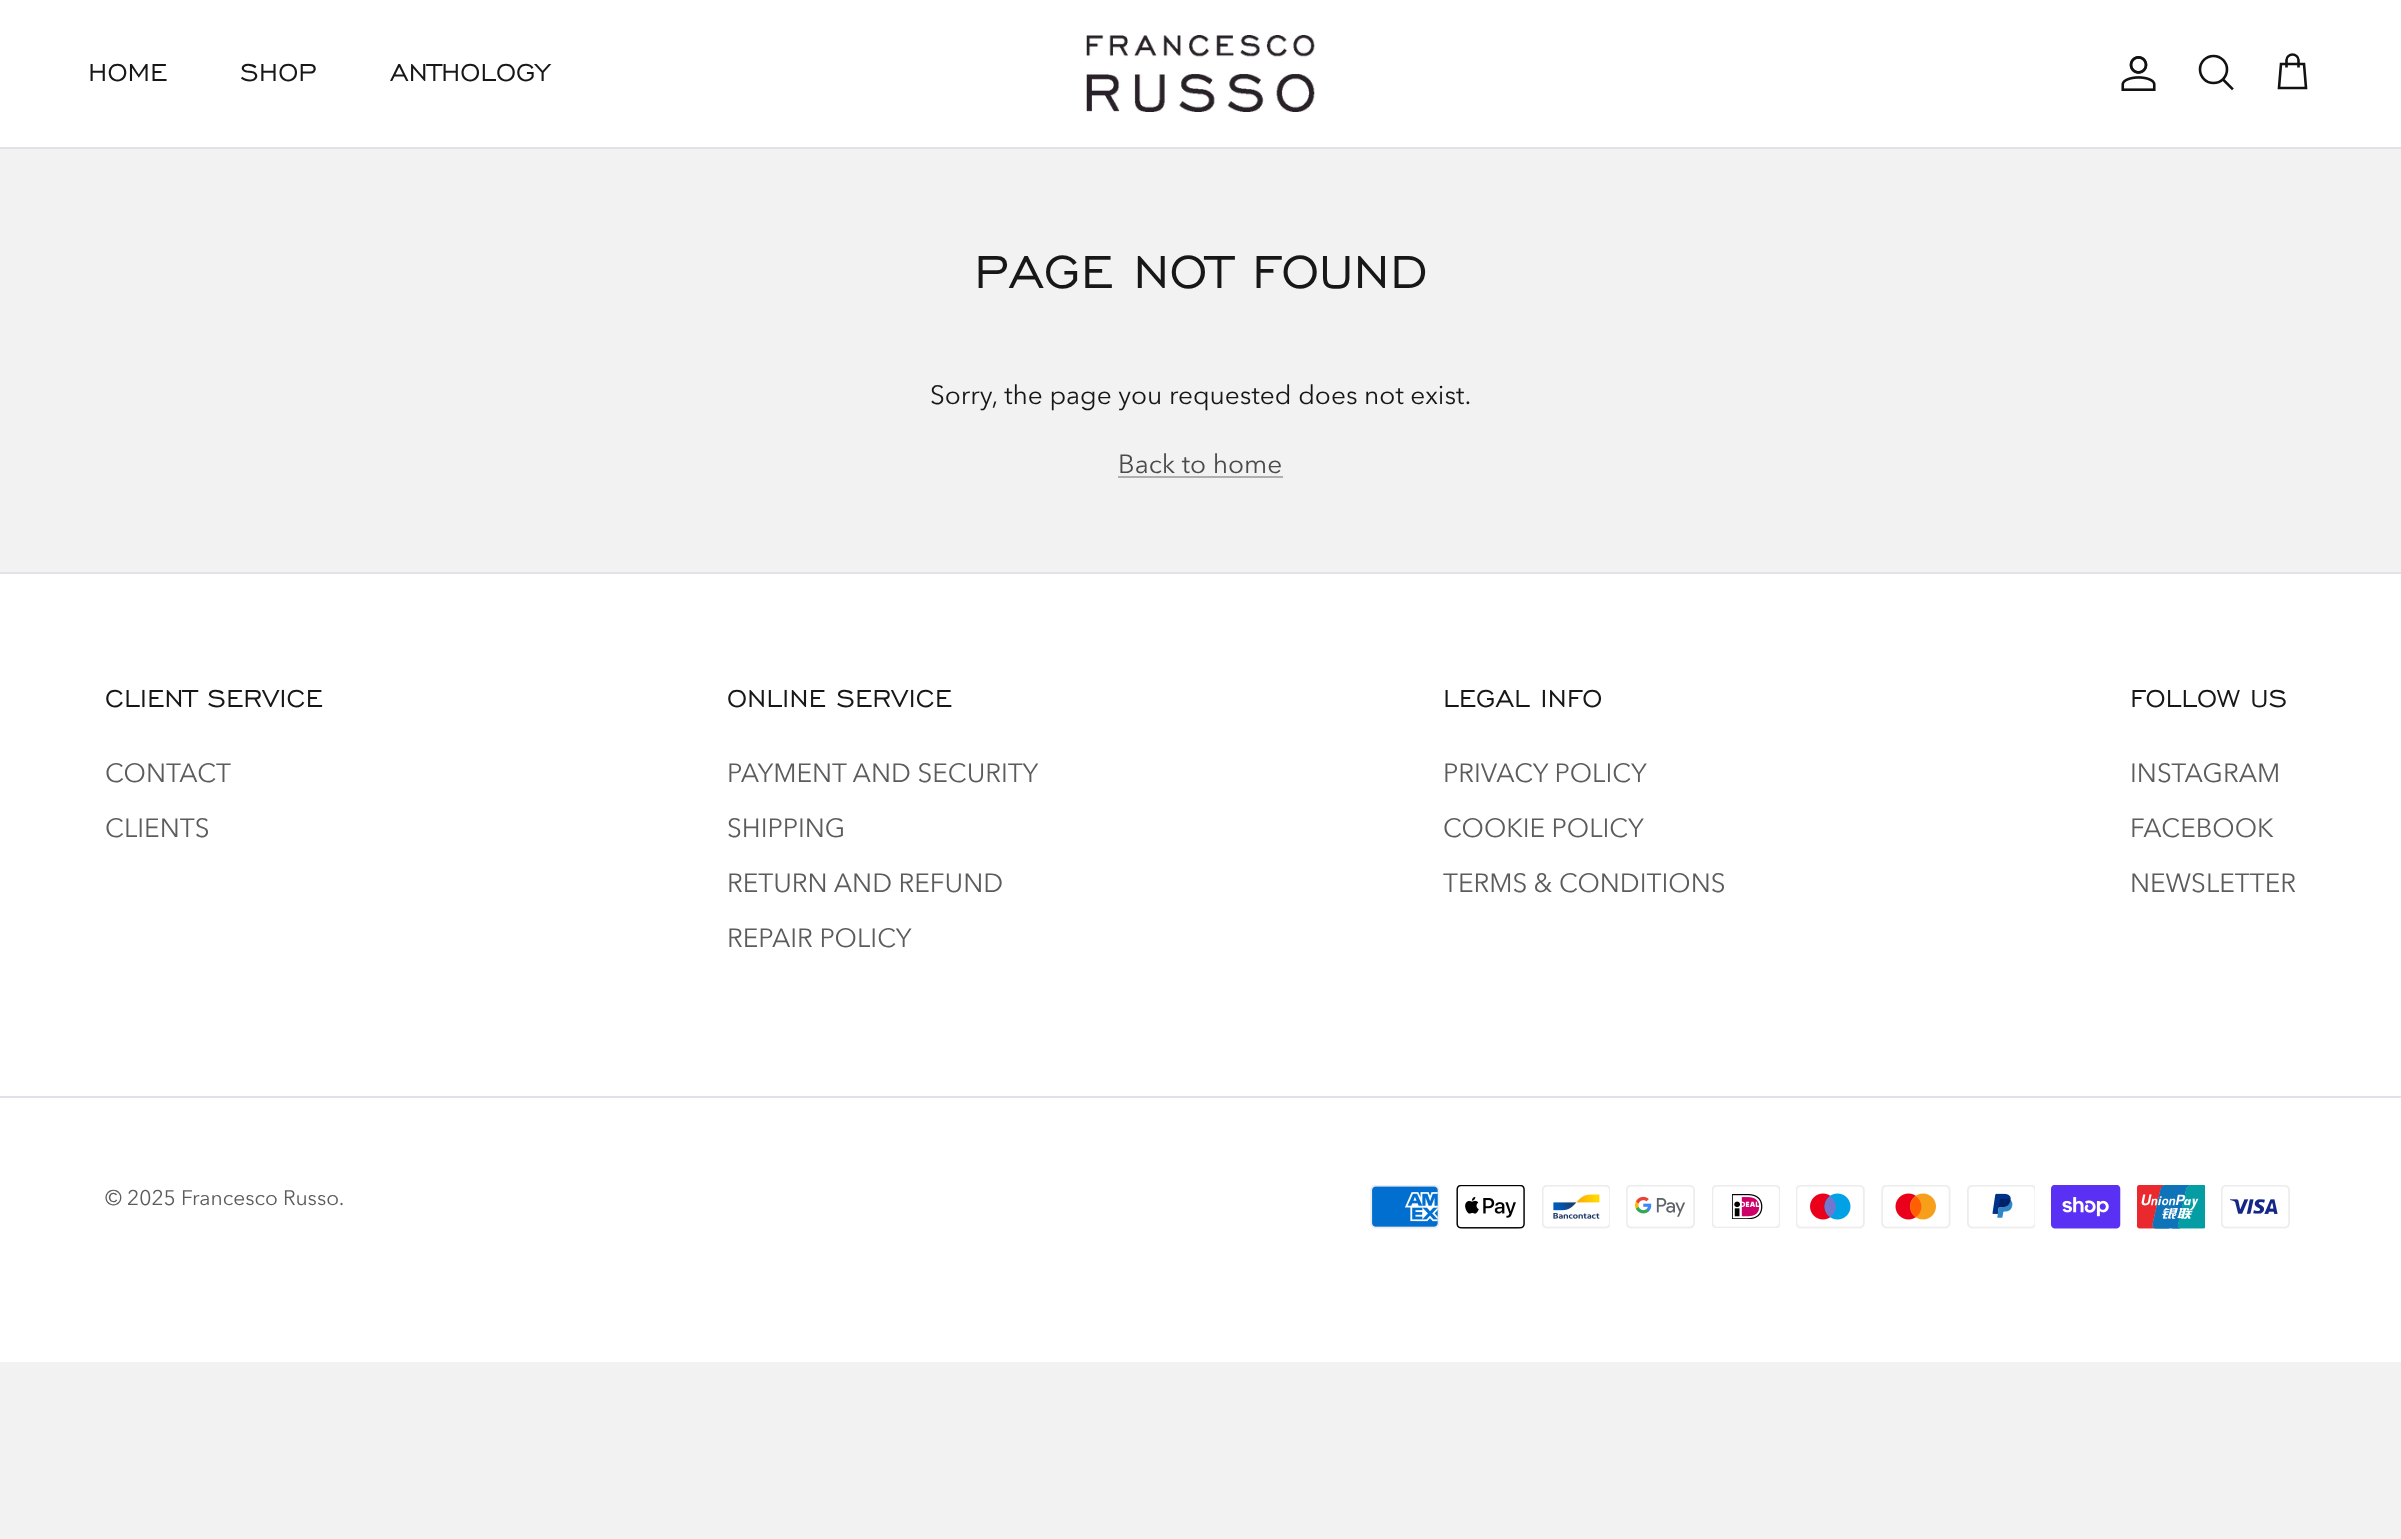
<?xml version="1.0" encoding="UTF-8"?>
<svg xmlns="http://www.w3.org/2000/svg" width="2401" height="1539">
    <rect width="100%" height="100%" fill="#F2F2F2"/>
    <rect x="0" y="0" width="2401" height="147" fill="#FFFFFF"/>
    <rect x="0" y="147" width="2401" height="2" fill="#DFE3E8"/>
    <text x="88" y="81" font-family="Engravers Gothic" font-size="31.5" fill="#171717">HOME</text>
    <text x="240" y="81" font-family="Engravers Gothic" font-size="31.5" fill="#171717">SHOP</text>
    <text x="390" y="81" font-family="Engravers Gothic" font-size="31.5" fill="#171717">ANTHOLOGY</text>
    <image x="1086" y="35" width="229" height="77" href="img_01.png"/>
    <image x="2121" y="56" width="35" height="35" href="img_02.png"/>
    <circle cx="2213.5" cy="69.5" r="13.5" fill="none" stroke="#121212" stroke-width="2.6"/>
    <path d="M 2224 80.5 L 2232 88.5" fill="none" stroke="#121212" stroke-width="2.6" stroke-linecap="square"/>
    <path d="M 2298.5 67.5 V 60 C 2298.5 57 2295.5 54.5 2292.5 54.5 C 2289.5 54.5 2286.5 57 2286.5 60 V 67.5 M 2281 64 H 2304 L 2306 88 H 2279 Z" fill="none" stroke="#121212" stroke-width="2.6"/>
    <text x="974" y="288" font-family="Engravers Gothic" font-size="59.5" fill="#171717">PAGE NOT FOUND</text>
    <text x="930" y="404" font-family="Avenir Next" font-size="26.25" fill="#171717">Sorry, the page you requested does not exist.</text>
    <text x="1118" y="473" font-family="Avenir Next" font-size="26.25" fill="#4B4B4B">Back to home</text>
    <rect x="1118" y="476" width="165" height="2" fill="#AFAFAF"/>
    <rect x="0" y="574" width="2401" height="788" fill="#FFFFFF"/>
    <rect x="0" y="572" width="2401" height="2" fill="#DFE3E8"/>
    <text x="105" y="707" font-family="Engravers Gothic" font-size="31.5" fill="#171717">CLIENT SERVICE</text>
    <text x="105" y="782" font-family="Avenir Next" font-size="26.25" fill="#5C5C5C">CONTACT</text>
    <text x="105" y="837" font-family="Avenir Next" font-size="26.25" fill="#5C5C5C">CLIENTS</text>
    <text x="727" y="707" font-family="Engravers Gothic" font-size="31.5" fill="#171717">ONLINE SERVICE</text>
    <text x="727" y="782" font-family="Avenir Next" font-size="26.25" fill="#5C5C5C">PAYMENT AND SECURITY</text>
    <text x="727" y="837" font-family="Avenir Next" font-size="26.25" fill="#5C5C5C">SHIPPING</text>
    <text x="727" y="892" font-family="Avenir Next" font-size="26.25" fill="#5C5C5C">RETURN AND REFUND</text>
    <text x="727" y="947" font-family="Avenir Next" font-size="26.25" fill="#5C5C5C">REPAIR POLICY</text>
    <text x="1443" y="707" font-family="Engravers Gothic" font-size="31.5" fill="#171717">LEGAL INFO</text>
    <text x="1443" y="782" font-family="Avenir Next" font-size="26.25" fill="#5C5C5C">PRIVACY POLICY</text>
    <text x="1443" y="837" font-family="Avenir Next" font-size="26.25" fill="#5C5C5C">COOKIE POLICY</text>
    <text x="1443" y="892" font-family="Avenir Next" font-size="26.25" fill="#5C5C5C">TERMS &amp; CONDITIONS</text>
    <text x="2130" y="707" font-family="Engravers Gothic" font-size="31.5" fill="#171717">FOLLOW US</text>
    <text x="2130" y="782" font-family="Avenir Next" font-size="26.25" fill="#5C5C5C">INSTAGRAM</text>
    <text x="2130" y="837" font-family="Avenir Next" font-size="26.25" fill="#5C5C5C">FACEBOOK</text>
    <text x="2130" y="892" font-family="Avenir Next" font-size="26.25" fill="#5C5C5C">NEWSLETTER</text>
    <rect x="0" y="1096" width="2401" height="2" fill="#DFE3E8"/>
    <text x="105" y="1205" font-family="Avenir Next" font-size="21" fill="#5C5C5C">© 2025 Francesco Russo.</text>
    <image x="1370" y="1185" width="70" height="44" href="img_03.png"/>
    <image x="1456" y="1185" width="69" height="44" href="img_04.png"/>
    <image x="1542" y="1185" width="68" height="44" href="img_05.png"/>
    <image x="1626" y="1185" width="69" height="44" href="img_06.png"/>
    <image x="1712" y="1185" width="68" height="43" href="img_07.png"/>
    <image x="1796" y="1185" width="69" height="44" href="img_08.png"/>
    <image x="1881" y="1185" width="70" height="44" href="img_09.png"/>
    <image x="1967" y="1185" width="68" height="44" href="img_10.png"/>
    <image x="2051" y="1185" width="70" height="44" href="img_11.png"/>
    <image x="2137" y="1185" width="68" height="44" href="img_12.png"/>
    <image x="2221" y="1185" width="69" height="44" href="img_13.png"/>
</svg>
